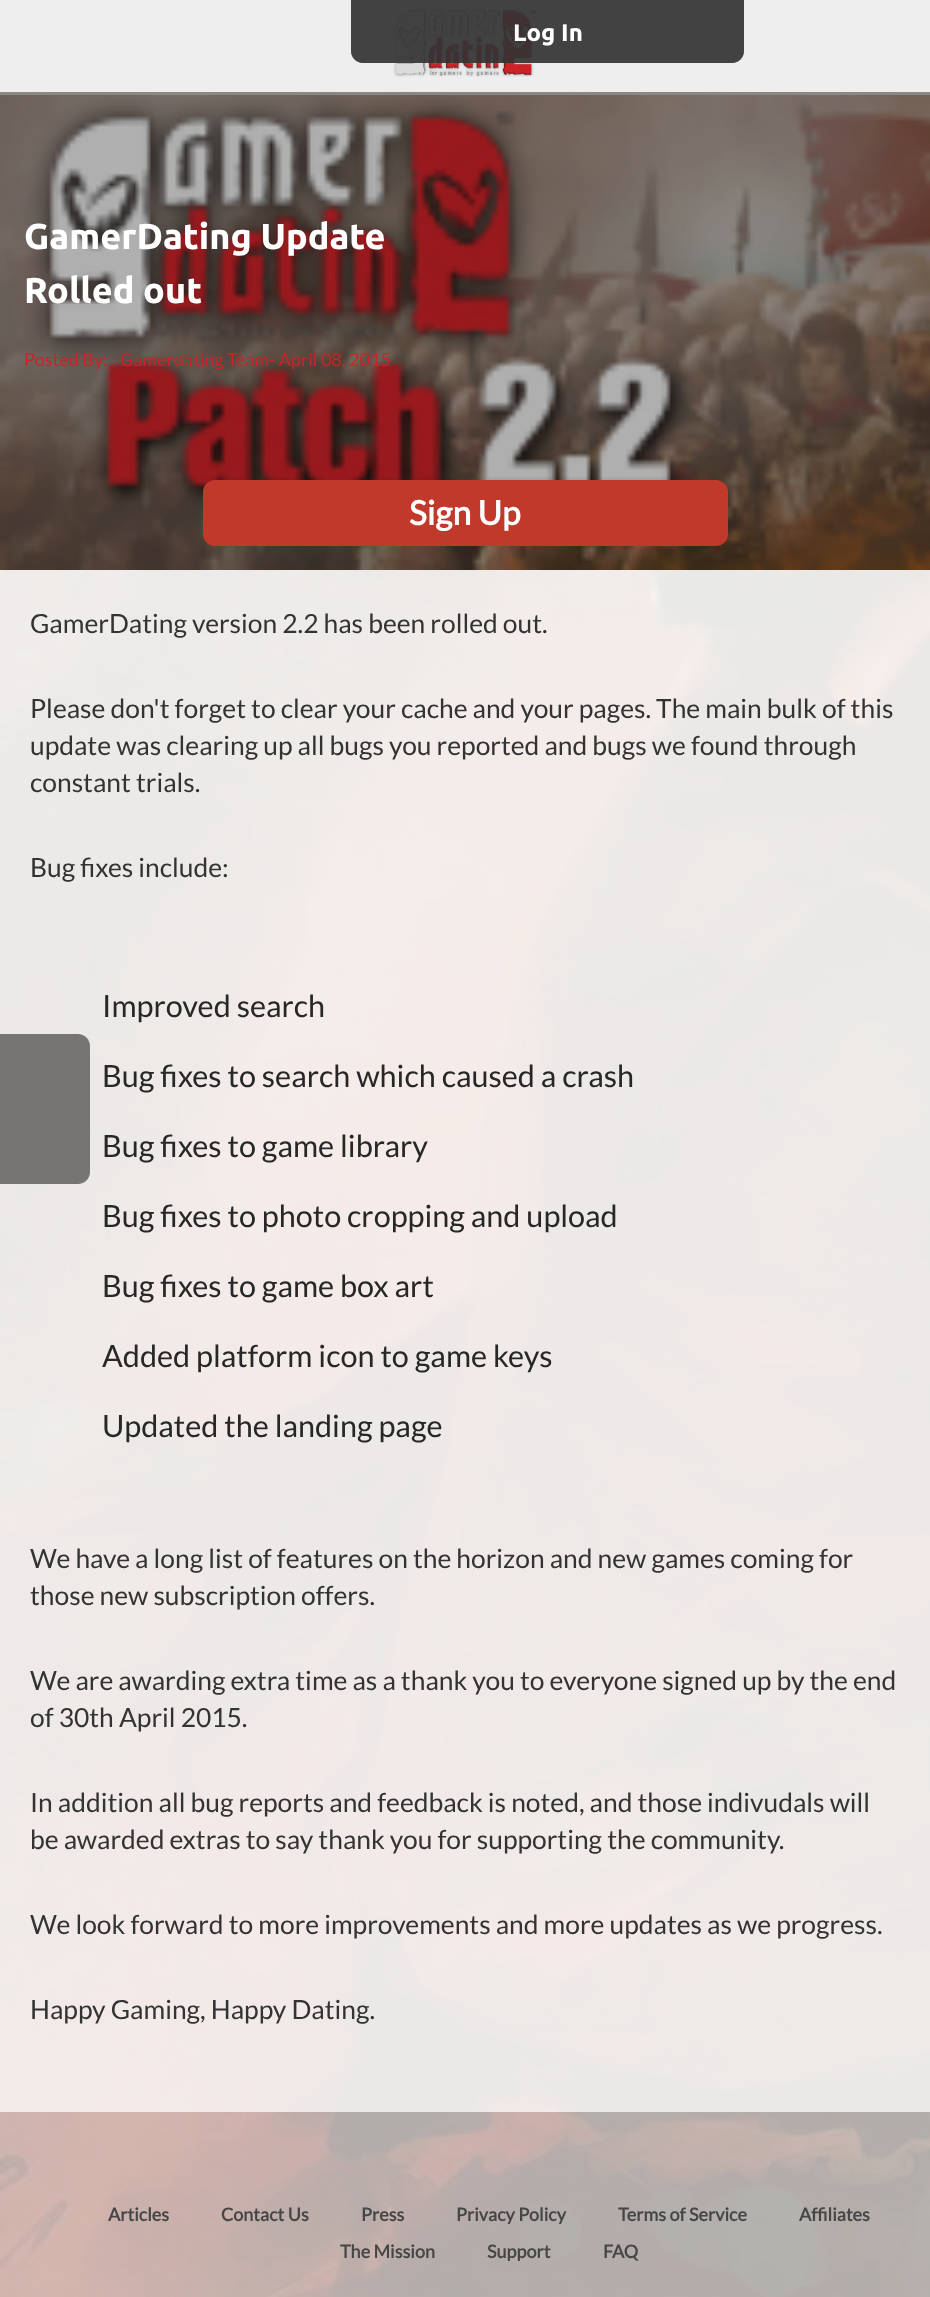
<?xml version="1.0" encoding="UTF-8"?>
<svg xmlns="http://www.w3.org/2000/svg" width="930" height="2297">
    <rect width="100%" height="100%" fill="#FFFFFF"/>
    <image x="0" y="570" width="930" height="1727" href="img_01.png"/>
    <rect x="0" y="0" width="930" height="92" fill="#EEEEEE"/>
    <rect x="0" y="92" width="930" height="3" fill="#888888"/>
    <image x="393" y="8" width="145" height="69" href="img_02.png"/>
    <path d="M 351 0 H 744 V 51 C 744 57.5 738.5 63 732 63 H 363 C 356.5 63 351 57.5 351 51 Z" fill="#333333" fill-opacity="0.8"/>
    <path d="M 351 0 H 744 V 51 C 744 57.5 738.5 63 732 63 H 363 C 356.5 63 351 57.5 351 51 Z" fill="#333333" fill-opacity="0.6"/>
    <text x="513" y="41" font-family="Ubuntu" font-size="24" font-weight="700" fill="#FFFFFF">Log In</text>
    <rect x="0" y="570" width="930" height="1542" fill="#F6F6F4" fill-opacity="0.95"/>
    <image x="0" y="95" width="930" height="475" href="img_03.png"/>
    <text font-family="Ubuntu" font-size="36" font-weight="700" fill="#FFFFFF">
        <tspan x="24" y="249">GamerDating Update</tspan>
        <tspan x="24" y="303">Rolled out</tspan>
    </text>
    <text x="24" y="366" font-family="Lato" font-size="18" fill="#CC2228">Posted By:</text>
    <text x="120" y="366" font-family="Lato" font-size="18" fill="#CC2228">Gamerdating Team- April 08, 2015</text>
    <rect x="203" y="480" width="525" height="66" rx="12" fill="#C0392B"/>
    <text x="409" y="525" font-family="Lato" font-size="33.5" font-weight="700" fill="#FFFFFF">Sign Up</text>
    <text x="30" y="633" font-family="Lato" font-size="26.4" fill="#333333">GamerDating version 2.2 has been rolled out.</text>
    <text font-family="Lato" font-size="26.4" fill="#333333">
        <tspan x="30" y="718">Please don't forget to clear your cache and your pages. The main bulk of this</tspan>
        <tspan x="30" y="755">update was clearing up all bugs you reported and bugs we found through</tspan>
        <tspan x="30" y="792">constant trials.</tspan>
    </text>
    <text x="30" y="877" font-family="Lato" font-size="26.4" fill="#333333">Bug fixes include:</text>
    <text x="102" y="1017" font-family="Lato" font-size="30.6" fill="#272727">Improved search</text>
    <text x="102" y="1087" font-family="Lato" font-size="30.6" fill="#272727">Bug fixes to search which caused a crash</text>
    <text x="102" y="1157" font-family="Lato" font-size="30.6" fill="#272727">Bug fixes to game library</text>
    <text x="102" y="1227" font-family="Lato" font-size="30.6" fill="#272727">Bug fixes to photo cropping and upload</text>
    <text x="102" y="1297" font-family="Lato" font-size="30.6" fill="#272727">Bug fixes to game box art</text>
    <text x="102" y="1367" font-family="Lato" font-size="30.6" fill="#272727">Added platform icon to game keys</text>
    <text x="102" y="1437" font-family="Lato" font-size="30.6" fill="#272727">Updated the landing page</text>
    <text font-family="Lato" font-size="26.4" fill="#333333">
        <tspan x="30" y="1568">We have a long list of features on the horizon and new games coming for</tspan>
        <tspan x="30" y="1605">those new subscription offers.</tspan>
    </text>
    <text font-family="Lato" font-size="26.4" fill="#333333">
        <tspan x="30" y="1690">We are awarding extra time as a thank you to everyone signed up by the end</tspan>
        <tspan x="30" y="1727">of 30th April 2015.</tspan>
    </text>
    <text font-family="Lato" font-size="26.4" fill="#333333">
        <tspan x="30" y="1812">In addition all bug reports and feedback is noted, and those indivudals will</tspan>
        <tspan x="30" y="1849">be awarded extras to say thank you for supporting the community.</tspan>
    </text>
    <text x="30" y="1934" font-family="Lato" font-size="26.4" fill="#333333">We look forward to more improvements and more updates as we progress.</text>
    <text x="30" y="2019" font-family="Lato" font-size="26.4" fill="#333333">Happy Gaming, Happy Dating.</text>
    <rect x="0" y="2112" width="930" height="185" fill="#D6D7D5" fill-opacity="0.8"/>
    <text x="108" y="2221" font-family="Lato" font-size="18" font-weight="700" fill="#464646">Articles</text>
    <text x="221" y="2221" font-family="Lato" font-size="18" font-weight="700" fill="#464646">Contact Us</text>
    <text x="361" y="2221" font-family="Lato" font-size="18" font-weight="700" fill="#464646">Press</text>
    <text x="456" y="2221" font-family="Lato" font-size="18" font-weight="700" fill="#464646">Privacy Policy</text>
    <text x="618" y="2221" font-family="Lato" font-size="18" font-weight="700" fill="#464646">Terms of Service</text>
    <text x="799" y="2221" font-family="Lato" font-size="18" font-weight="700" fill="#464646">Affiliates</text>
    <text x="340" y="2258" font-family="Lato" font-size="18" font-weight="700" fill="#464646">The Mission</text>
    <text x="487" y="2258" font-family="Lato" font-size="18" font-weight="700" fill="#464646">Support</text>
    <text x="603" y="2258" font-family="Lato" font-size="18" font-weight="700" fill="#464646">FAQ</text>
    <path d="M 0 1034 H 78 C 84.5 1034 90 1039.5 90 1046 V 1172 C 90 1178.5 84.5 1184 78 1184 H 0 Z" fill="#767574"/>
</svg>
